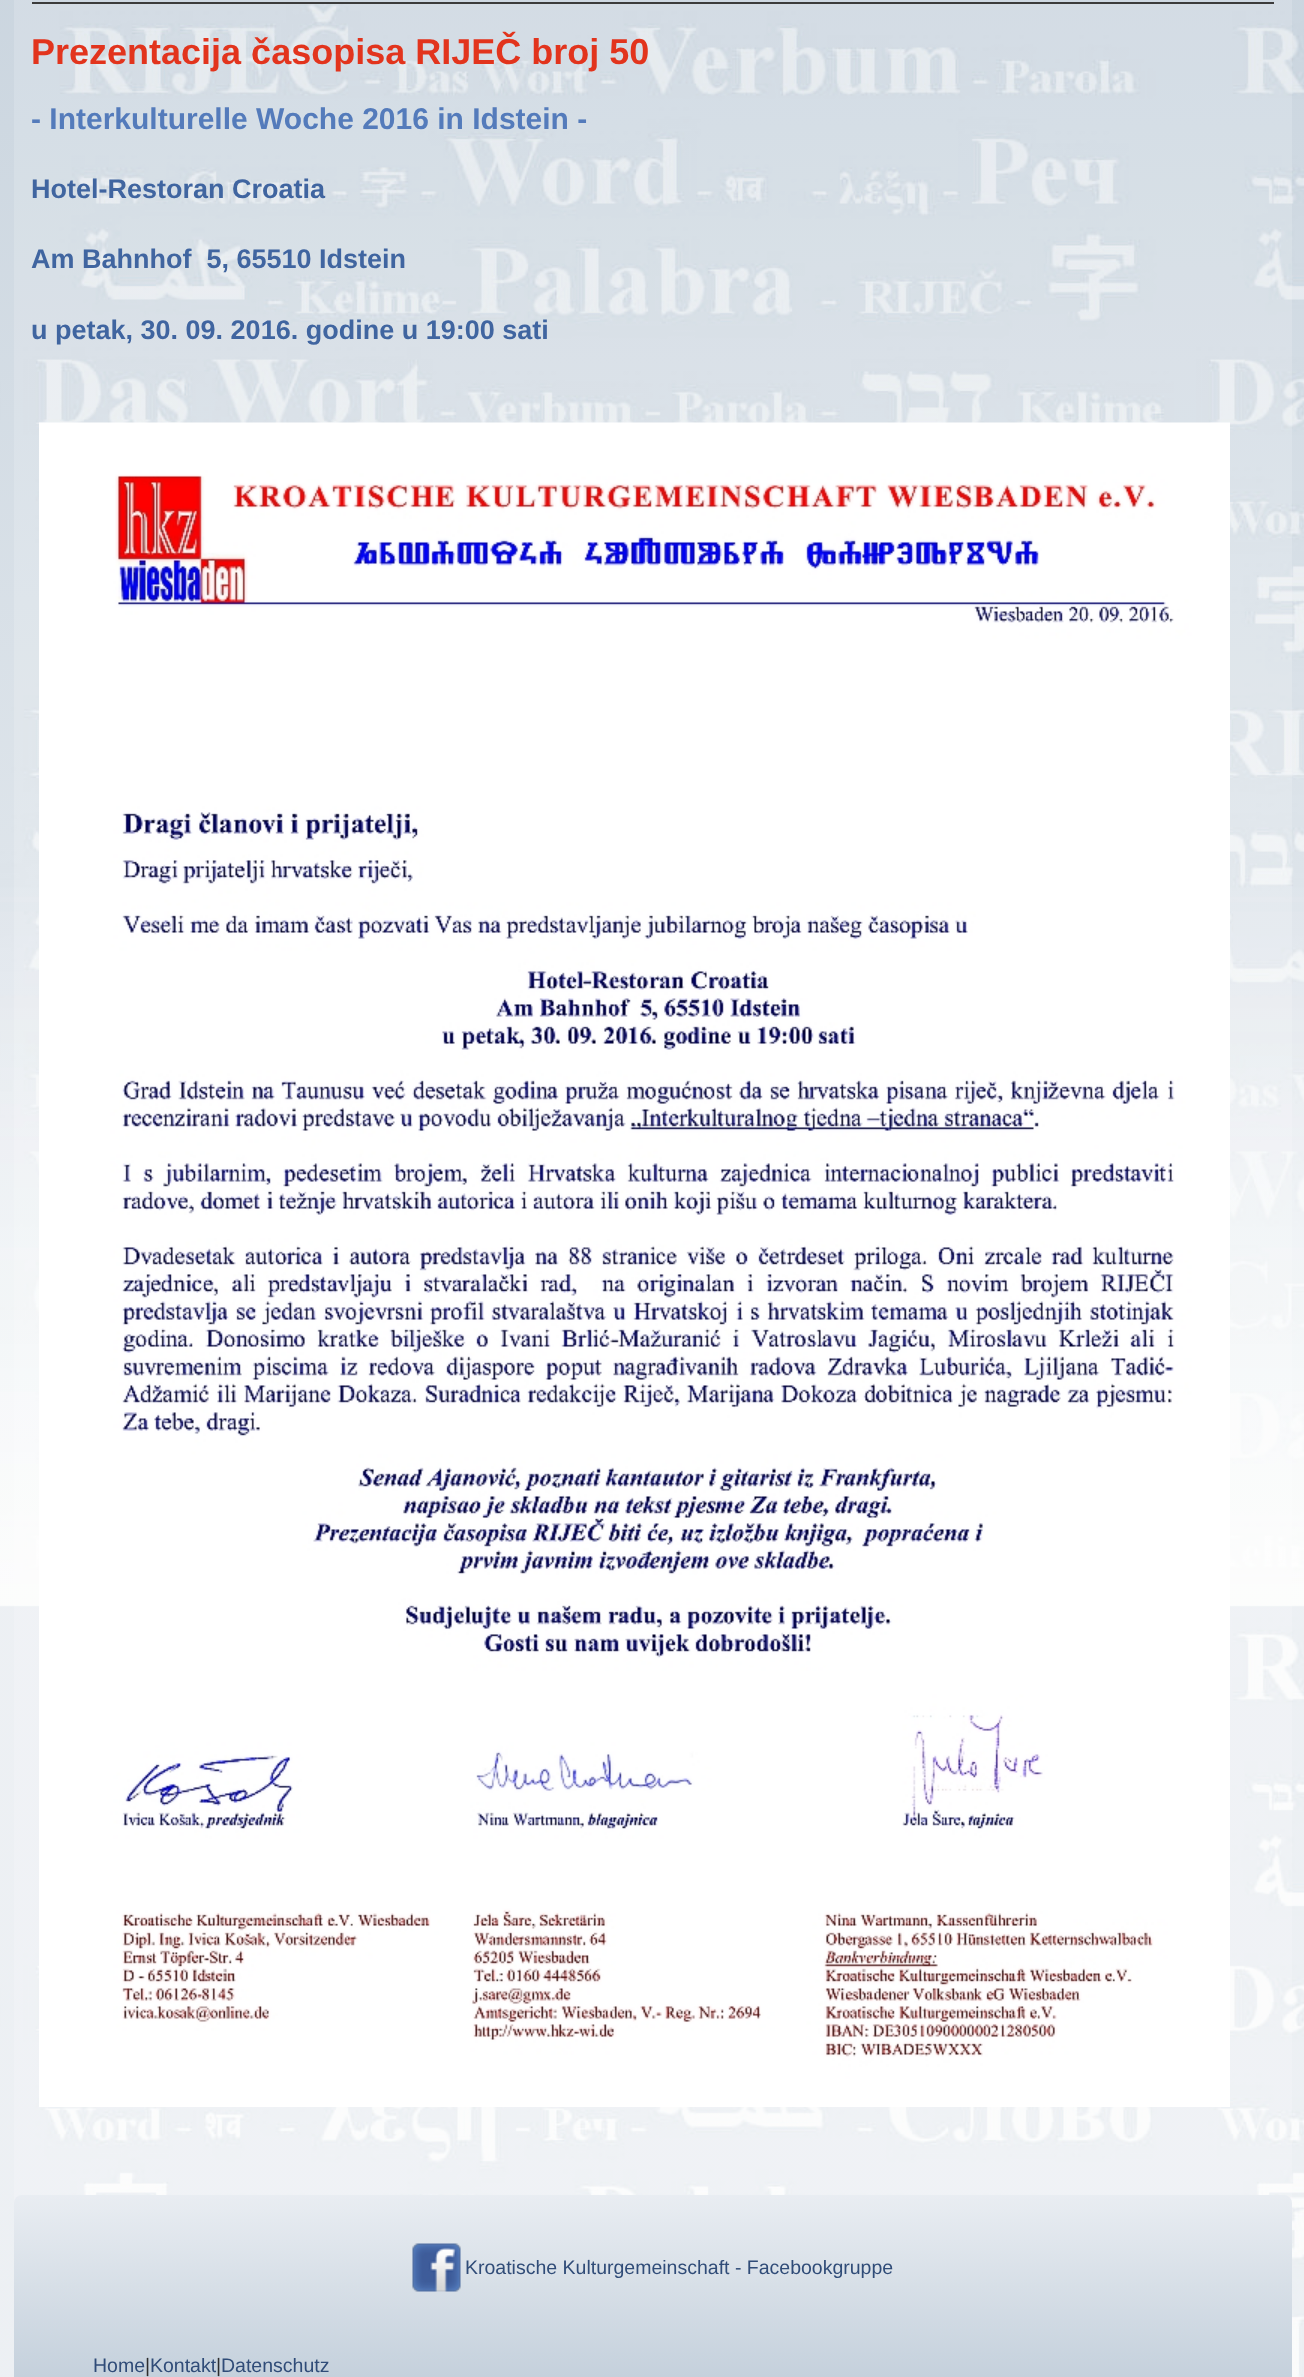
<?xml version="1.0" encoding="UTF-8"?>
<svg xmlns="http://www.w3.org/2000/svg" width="1304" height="2377">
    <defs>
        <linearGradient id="g1" gradientUnits="userSpaceOnUse" x1="653" y1="2195" x2="653" y2="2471"><stop offset="0" stop-color="#E9EDF2"/><stop offset="1" stop-color="#B2C2D1"/></linearGradient>
    </defs>
    <rect width="100%" height="100%" fill="#FFFFFF"/>
    <image x="0" y="0" width="1304" height="2377" href="img_01.png"/>
    <rect x="32" y="0" width="1242" height="2" fill="#CCD6E0" fill-opacity="0.6"/>
    <rect x="32" y="2" width="1242" height="2" fill="#3B3B3B"/>
    <text x="31" y="64" font-family="Liberation Sans" font-size="36" font-weight="700" fill="#E2341D">Prezentacija časopisa RIJEČ broj 50</text>
    <text x="31" y="129" font-family="Liberation Sans" font-size="30" font-weight="700" fill="#547BBB">- Interkulturelle Woche 2016 in Idstein -</text>
    <text x="31" y="198" font-family="Liberation Sans" font-size="27" font-weight="700" fill="#4065A0">Hotel-Restoran Croatia</text>
    <text x="31" y="268" font-family="Liberation Sans" font-size="27" font-weight="700" fill="#4065A0" xml:space="preserve">Am Bahnhof  5, 65510 Idstein</text>
    <text x="31" y="339" font-family="Liberation Sans" font-size="27" font-weight="700" fill="#4065A0">u petak, 30. 09. 2016. godine u 19:00 sati</text>
    <image x="39" y="422" width="1191" height="1685" href="img_02.png"/>
    <rect x="14" y="2195" width="1278" height="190" rx="8" fill="url(#g1)"/>
    <image x="412" y="2243" width="49" height="49" href="img_03.png"/>
    <text x="465" y="2274" font-family="Liberation Sans" font-size="19.5" fill="#304C78">Kroatische Kulturgemeinschaft - Facebookgruppe</text>
    <text x="93" y="2372" font-family="Liberation Sans" font-size="19.5" fill="#304C78">Home</text>
    <text x="145" y="2372" font-family="Liberation Sans" font-size="19.5" fill="#2E2E2E">|</text>
    <text x="150" y="2372" font-family="Liberation Sans" font-size="19.5" fill="#304C78">Kontakt</text>
    <text x="216" y="2372" font-family="Liberation Sans" font-size="19.5" fill="#2E2E2E">|</text>
    <text x="221" y="2372" font-family="Liberation Sans" font-size="19.5" fill="#304C78">Datenschutz</text>
</svg>
